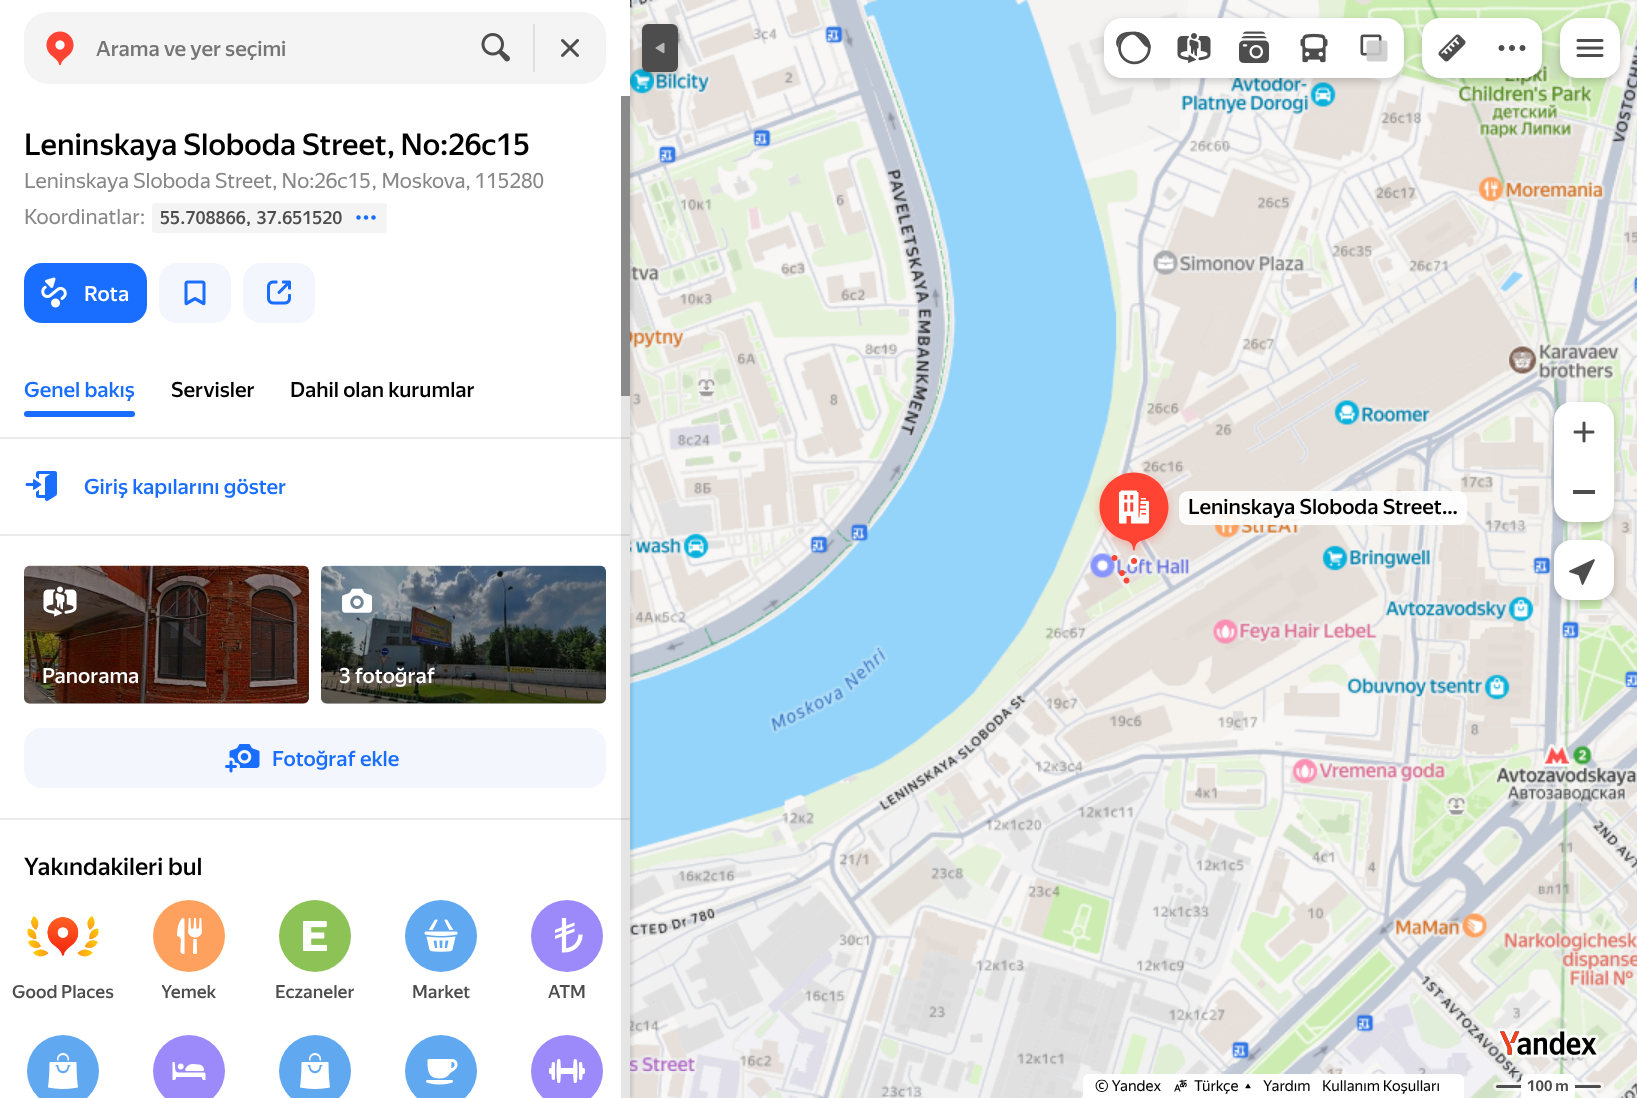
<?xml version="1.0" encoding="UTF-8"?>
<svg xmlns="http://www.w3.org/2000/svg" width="1637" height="1098">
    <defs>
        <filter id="blur1" x="-50%" y="-200%" width="200%" height="500%"><feGaussianBlur stdDeviation="1.5"/></filter>
        <filter id="blur2" x="-50%" y="-200%" width="200%" height="500%"><feGaussianBlur stdDeviation="4.5"/></filter>
        <clipPath id="clip1"><rect x="162" y="981" width="54" height="21"/></clipPath>
    </defs>
    <rect width="100%" height="100%" fill="#FFFFFF"/>
    <image x="630" y="0" width="24" height="303" href="img_37.png"/>
    <image x="630" y="303" width="24" height="384" href="img_41.png"/>
    <image x="630" y="687" width="24" height="384" href="img_45.png"/>
    <image x="630" y="1071" width="24" height="27" href="img_49.png"/>
    <rect x="3" y="0" width="630" height="1098" fill="#000000" fill-opacity="0.1" filter="url(#blur1)"/>
    <image x="654" y="0" width="384" height="303" href="img_38.png"/>
    <rect x="642" y="27" width="36" height="48" rx="6" fill="#000000" fill-opacity="0.2" filter="url(#blur2)"/>
    <rect x="1" y="0" width="629" height="1098" fill="#FFFFFF"/>
    <rect x="24" y="12" width="582" height="72" rx="24" fill="#F4F4F4"/>
    <image x="46" y="31" width="28" height="35" href="img_01.png"/>
    <text x="96" y="56" font-family="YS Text" font-size="21" font-weight="500" fill="#757575">Arama ve yer seçimi</text>
    <image x="481" y="33" width="29" height="29" href="img_02.png"/>
    <rect x="533" y="24" width="2" height="48" fill="#E0E0E0"/>
    <image x="561" y="39" width="18" height="18" href="img_03.png"/>
    <image x="1038" y="0" width="384" height="303" href="img_39.png"/>
    <rect x="1104" y="21" width="300" height="60" rx="18" fill="#000000" fill-opacity="0.2" filter="url(#blur2)"/>
    <path d="M 1122 18 H 1164 V 78 H 1122 C 1112 78 1104 70 1104 60 V 36 C 1104 26 1112 18 1122 18 Z" fill="#FFFFFF"/>
    <image x="1116" y="31" width="35" height="34" href="img_04.png"/>
    <rect x="1164" y="18" width="180" height="60" fill="#FFFFFF"/>
    <image x="1177" y="33" width="34" height="30" href="img_05.png"/>
    <path d="M 1344 18 H 1386 C 1396 18 1404 26 1404 36 V 60 C 1404 70 1396 78 1386 78 H 1344 Z" fill="#FFFFFF"/>
    <image x="1360" y="34" width="28" height="28" href="img_06.png"/>
    <image x="1239" y="31" width="30" height="32" href="img_07.png"/>
    <image x="1300" y="33" width="28" height="30" href="img_08.png"/>
    <image x="1422" y="0" width="215" height="303" href="img_40.png"/>
    <rect x="1422" y="21" width="120" height="60" rx="18" fill="#000000" fill-opacity="0.2" filter="url(#blur2)"/>
    <path d="M 1440 18 H 1482 V 78 H 1440 C 1430 78 1422 70 1422 60 V 36 C 1422 26 1430 18 1440 18 Z" fill="#FFFFFF"/>
    <image x="1438" y="34" width="28" height="28" href="img_09.png"/>
    <path d="M 1482 18 H 1524 C 1534 18 1542 26 1542 36 V 60 C 1542 70 1534 78 1524 78 H 1482 Z" fill="#FFFFFF"/>
    <image x="1498" y="45" width="28" height="6" href="img_10.png"/>
    <rect x="1560" y="21" width="60" height="60" rx="18" fill="#000000" fill-opacity="0.2" filter="url(#blur2)"/>
    <rect x="1560" y="18" width="60" height="60" rx="18" fill="#FFFFFF"/>
    <image x="1576" y="39" width="28" height="18" href="img_11.png"/>
    <image x="1422" y="303" width="215" height="384" href="img_44.png"/>
    <rect x="1554" y="405" width="60" height="120" rx="18" fill="#000000" fill-opacity="0.2" filter="url(#blur2)"/>
    <path d="M 1572 402 H 1596 C 1606 402 1614 410 1614 420 V 462 H 1554 V 420 C 1554 410 1562 402 1572 402 Z" fill="#FFFFFF"/>
    <image x="1573" y="421" width="22" height="22" href="img_12.png"/>
    <path d="M 1554 462 H 1614 V 504 C 1614 514 1606 522 1596 522 H 1572 C 1562 522 1554 514 1554 504 Z" fill="#FFFFFF"/>
    <rect x="1573" y="490" width="22" height="4" fill="#4D4D4D"/>
    <rect x="1554" y="543" width="60" height="60" rx="18" fill="#000000" fill-opacity="0.2" filter="url(#blur2)"/>
    <rect x="1554" y="540" width="60" height="60" rx="18" fill="#FFFFFF"/>
    <image x="1569" y="559" width="26" height="26" href="img_13.png"/>
    <rect x="642" y="24" width="36" height="48" rx="6" fill="#4D4D4D"/>
    <image x="655" y="42" width="10" height="12" href="img_14.png"/>
    <text x="24" y="155" font-family="YS Text" font-size="30" font-weight="500" fill="#000000">Leninskaya Sloboda Street, No:26с15</text>
    <text font-family="YS Text" font-size="21" fill="#878787">
        <tspan x="24" y="188">Leninskaya Sloboda Street, No:26с15, Moskova, 115280</tspan>
        <tspan x="24" y="224">Koordinatlar:</tspan>
    </text>
    <rect x="152" y="203" width="235" height="30" rx="3" fill="#F4F4F4"/>
    <text x="160" y="224" font-family="YS Text" font-size="18" font-weight="500" fill="#4D4D4D">55.708866, 37.651520</text>
    <image x="356" y="215" width="20" height="5" href="img_15.png"/>
    <rect x="24" y="263" width="123" height="60" rx="18" fill="#196DFF"/>
    <image x="41" y="277" width="26" height="31" href="img_16.png"/>
    <text x="84" y="301" font-family="YS Text" font-size="21" font-weight="500" fill="#FFFFFF">Rota</text>
    <rect x="159" y="263" width="72" height="60" rx="18" fill="#F3F6FC"/>
    <image x="184" y="280" width="22" height="26" href="img_17.png"/>
    <rect x="243" y="263" width="72" height="60" rx="18" fill="#F3F6FC"/>
    <image x="267" y="280" width="24" height="25" href="img_18.png"/>
    <text x="24" y="397" font-family="YS Text" font-size="21" font-weight="500" fill="#196DFF">Genel bakış</text>
    <text x="171" y="397" font-family="YS Text" font-size="21" font-weight="500" fill="#000000">Servisler</text>
    <text x="290" y="397" font-family="YS Text" font-size="21" font-weight="500" fill="#000000">Dahil olan kurumlar</text>
    <rect x="24" y="411" width="111" height="6" rx="3" fill="#196DFF"/>
    <rect x="0" y="437" width="630" height="2" fill="#EBEBEB"/>
    <rect x="0" y="534" width="630" height="2" fill="#EBEBEB"/>
    <image x="25" y="471" width="32" height="30" href="img_19.png"/>
    <text x="84" y="494" font-family="YS Text" font-size="21" font-weight="500" fill="#196DFF">Giriş kapılarını göster</text>
    <rect x="0" y="818" width="630" height="2" fill="#EBEBEB"/>
    <image x="24" y="565" width="285" height="139" href="img_20.png"/>
    <rect x="24" y="566" width="285" height="138" rx="6" fill="#000000" fill-opacity="0.3"/>
    <image x="43" y="586" width="34" height="31" href="img_21.png"/>
    <text x="42" y="683" font-family="YS Text" font-size="21" font-weight="500" fill="#FFFFFF">Panorama</text>
    <image x="321" y="565" width="285" height="139" href="img_22.png"/>
    <rect x="321" y="566" width="285" height="138" rx="6" fill="#000000" fill-opacity="0.3"/>
    <image x="342" y="588" width="30" height="25" href="img_23.png"/>
    <text x="339" y="683" font-family="YS Text" font-size="21" font-weight="500" fill="#FFFFFF">3 fotoğraf</text>
    <rect x="24" y="728" width="582" height="60" rx="18" fill="#F3F6FC"/>
    <image x="225" y="744" width="35" height="29" href="img_24.png"/>
    <text x="272" y="766" font-family="YS Text" font-size="21" font-weight="500" fill="#196DFF">Fotoğraf ekle</text>
    <text x="24" y="875" font-family="YS Text" font-size="24" font-weight="500" fill="#000000">Yakındakileri bul</text>
    <image x="27" y="916" width="72" height="41" href="img_25.png"/>
    <text x="12" y="998" font-family="YS Text" font-size="18" font-weight="500" fill="#4D4D4D">Good Places</text>
    <circle cx="189" cy="936" r="36" fill="#FFA15E"/>
    <image x="177" y="918" width="25" height="36" href="img_26.png"/>
    <g clip-path="url(#clip1)">
        <text x="161" y="998" font-family="YS Text" font-size="18" font-weight="500" fill="#4D4D4D">Yemek</text>
    </g>
    <circle cx="315" cy="936" r="36" fill="#8DC257"/>
    <image x="303" y="921" width="24" height="30" href="img_27.png"/>
    <text x="275" y="998" font-family="YS Text" font-size="18" font-weight="500" fill="#4D4D4D">Eczaneler</text>
    <circle cx="441" cy="936" r="36" fill="#60A8F0"/>
    <image x="424" y="919" width="34" height="33" href="img_28.png"/>
    <text x="412" y="998" font-family="YS Text" font-size="18" font-weight="500" fill="#4D4D4D">Market</text>
    <circle cx="567" cy="936" r="36" fill="#9C89FA"/>
    <image x="555" y="918" width="28" height="35" href="img_29.png"/>
    <text x="548" y="998" font-family="YS Text" font-size="18" font-weight="500" fill="#4D4D4D">ATM</text>
    <circle cx="63" cy="1071" r="36" fill="#60A8F0"/>
    <image x="48" y="1053" width="30" height="36" href="img_30.png"/>
    <circle cx="189" cy="1071" r="36" fill="#9C89FA"/>
    <image x="172" y="1062" width="34" height="18" href="img_31.png"/>
    <circle cx="315" cy="1071" r="36" fill="#60A8F0"/>
    <image x="300" y="1053" width="30" height="36" href="img_30.png"/>
    <circle cx="441" cy="1071" r="36" fill="#60A8F0"/>
    <image x="426" y="1059" width="32" height="26" href="img_32.png"/>
    <circle cx="567" cy="1071" r="36" fill="#9C89FA"/>
    <image x="549" y="1059" width="36" height="24" href="img_33.png"/>
    <rect x="621" y="96" width="9" height="300" fill="#8A8A8A"/>
    <rect x="621" y="396" width="9" height="702" fill="#000000" fill-opacity="0.1"/>
    <image x="1422" y="687" width="215" height="384" href="img_48.png"/>
    <image x="1497" y="1028" width="103" height="30" href="img_34.png"/>
    <image x="1038" y="1071" width="384" height="27" href="img_51.png"/>
    <image x="1422" y="1071" width="215" height="27" href="img_52.png"/>
    <path d="M 1089 1074 H 1458 C 1461.5 1074 1464 1076.5 1464 1080 V 1098 H 1083 V 1080 C 1083 1076.5 1085.5 1074 1089 1074 Z" fill="#FFFFFF"/>
    <text x="1095" y="1091" font-family="YS Text" font-size="15" fill="#000000">© Yandex</text>
    <image x="1174" y="1079" width="13" height="13" href="img_35.png"/>
    <text x="1194" y="1091" font-family="YS Text" font-size="15" fill="#000000">Türkçe</text>
    <image x="1245" y="1083" width="6" height="6" href="img_36.png"/>
    <text x="1263" y="1091" font-family="YS Text" font-size="15" fill="#000000">Yardım</text>
    <text x="1322" y="1091" font-family="YS Text" font-size="15" fill="#000000">Kullanım Koşulları</text>
    <rect x="1493" y="1082" width="111" height="9" rx="4.5" fill="#FFFFFF" fill-opacity="0.6"/>
    <rect x="1496" y="1085" width="105" height="3" rx="1.5" fill="#4D4D4D"/>
    <path d="M 1527 1074 H 1569 C 1572.5 1074 1575 1076.5 1575 1080 V 1098 H 1521 V 1080 C 1521 1076.5 1523.5 1074 1527 1074 Z" fill="#FFFFFF"/>
    <text x="1527" y="1091" font-family="YS Text" font-size="15" font-weight="700" fill="#4D4D4D">100 m</text>
    <image x="654" y="303" width="384" height="384" href="img_42.png"/>
    <image x="1038" y="303" width="384" height="384" href="img_43.png"/>
    <image x="654" y="687" width="384" height="384" href="img_46.png"/>
    <image x="1038" y="687" width="384" height="384" href="img_47.png"/>
    <image x="654" y="1071" width="384" height="27" href="img_50.png"/>
    <path d="M 1113 555.5 C 1116.5 553.5 1119.5 558.5 1116 560.5 C 1112.5 562.5 1109.5 557.5 1113 555.5 Z M 1119.5 574.5 C 1117.5 571 1122.5 568 1124.5 571.5 C 1126.5 575 1121.5 578 1119.5 574.5 Z M 1124 582 C 1122 578.5 1127 575.5 1129 579 C 1131 582.5 1126 585.5 1124 582 Z" fill="#FF4433"/>
    <image x="1094" y="470" width="80" height="97" href="img_53.png"/>
    <image x="1119" y="490" width="30" height="34" href="img_54.png"/>
    <rect x="1179" y="491" width="288" height="34" rx="9" fill="#FFFFFF" fill-opacity="0.9"/>
    <text x="1188" y="514" font-family="YS Text" font-size="21" font-weight="500" fill="#000000">Leninskaya Sloboda Street…</text>
</svg>
